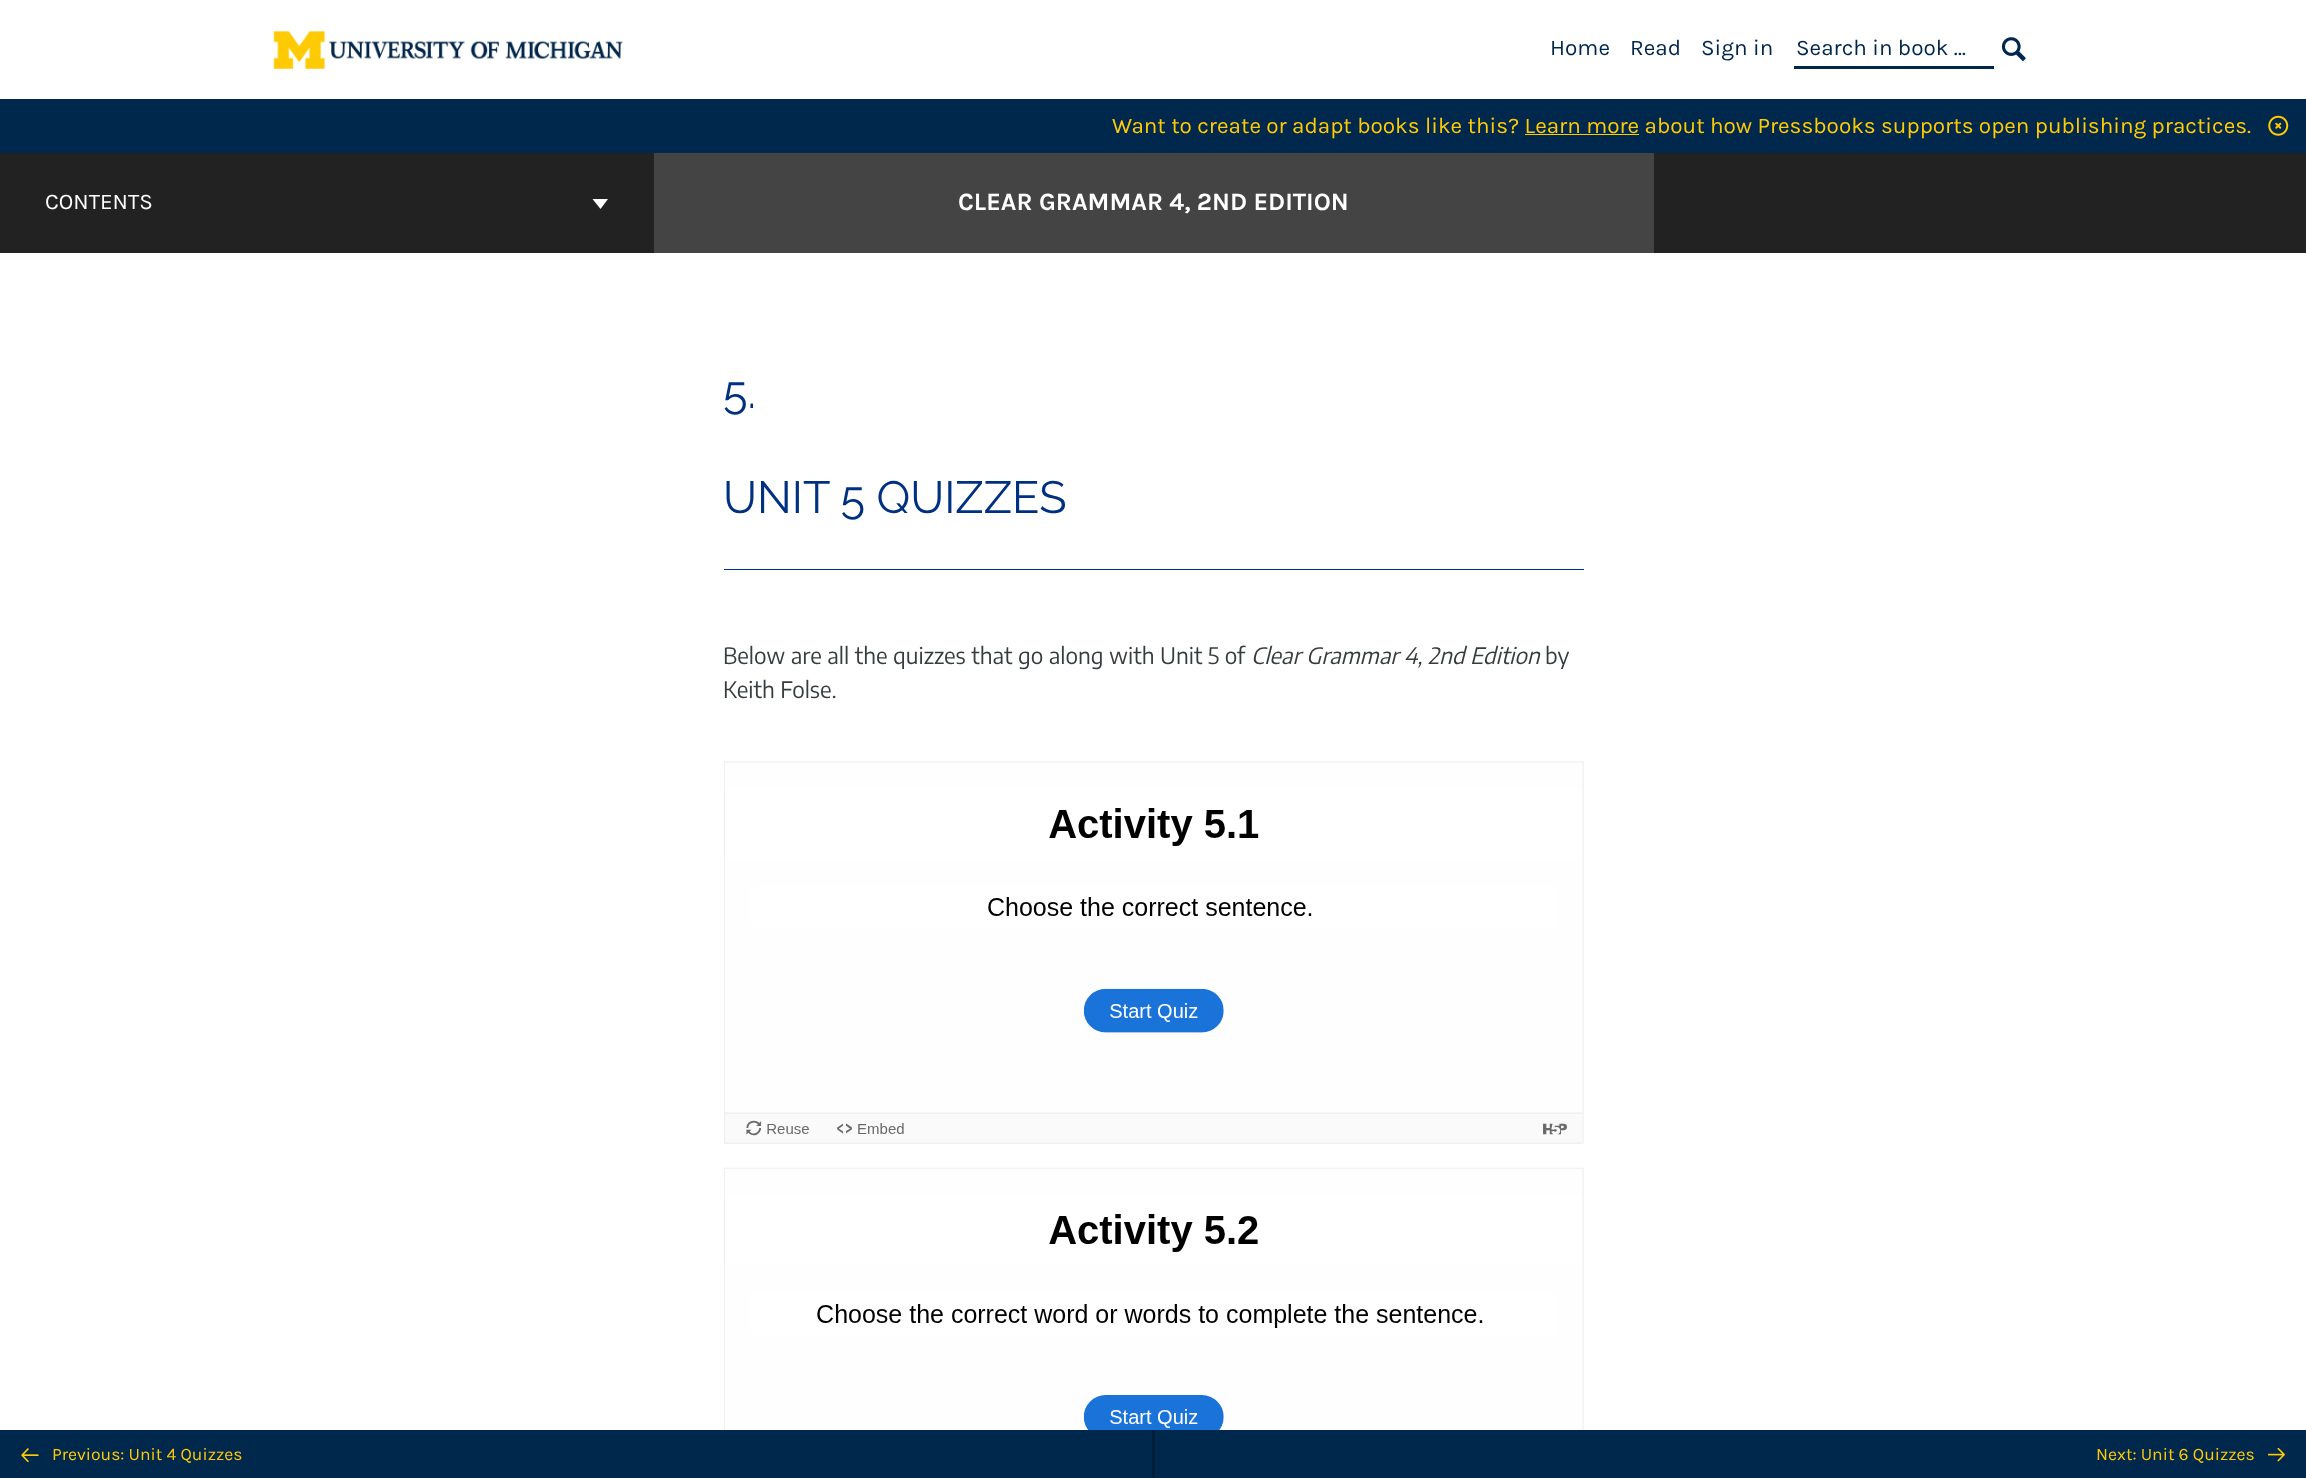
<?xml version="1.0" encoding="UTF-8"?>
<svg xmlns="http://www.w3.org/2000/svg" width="2306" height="1478">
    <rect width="100%" height="100%" fill="#FFFFFF"/>
    <image x="273" y="31" width="350" height="38" href="img_01.png"/>
    <text x="1550" y="55" font-family="Karla" font-size="22.5" fill="#00274C">Home</text>
    <text x="1630" y="55" font-family="Karla" font-size="22.5" fill="#00274C">Read</text>
    <text x="1701" y="55" font-family="Karla" font-size="22.5" fill="#00274C">Sign in</text>
    <rect x="1794" y="66" width="200" height="3" fill="#00274C"/>
    <text x="1796" y="55" font-family="Karla" font-size="22.5" fill="#00274C">Search in book …</text>
    <image x="2001" y="37" width="25" height="24" href="img_02.png"/>
    <rect x="0" y="99" width="2306" height="54" fill="#00274C"/>
    <text x="1112" y="133" font-family="Karla" font-size="22.5" fill="#FFCB05">Want to create or adapt books like this? Learn more about how Pressbooks supports open publishing practices.</text>
    <image x="2268" y="115" width="21" height="21" href="img_03.png"/>
    <rect x="1525" y="134" width="114" height="1" fill="#FFCB05"/>
    <rect x="0" y="153" width="2306" height="100" fill="#222222"/>
    <text x="45" y="209" font-family="Karla" font-size="22.5" fill="#FFFFFF">CONTENTS</text>
    <path d="M 600.5 209 L 592.5 199 H 608 Z" fill="#FFFFFF" fill-rule="evenodd"/>
    <rect x="654" y="153" width="1000" height="100" fill="#444444"/>
    <text x="958" y="210" font-family="Karla" font-size="25" font-weight="700" fill="#FFFFFF">CLEAR GRAMMAR 4, 2ND EDITION</text>
    <rect x="724" y="569" width="860" height="1" fill="#003180"/>
    <text x="723" y="408" font-family="Raleway" font-size="45" font-weight="100" fill="#003180">5.</text>
    <text x="723" y="513" font-family="Raleway" font-size="45" font-weight="100" fill="#003180">UNIT 5 QUIZZES</text>
    <text x="723" y="664" font-family="Encode Sans Condensed" font-size="22.5" font-weight="100" fill="#373D3F">Below are all the quizzes that go along with Unit 5 of</text>
    <text x="1251" y="664" font-family="Encode Sans Condensed" font-size="22.5" font-weight="100" font-style="italic" fill="#373D3F">Clear Grammar 4, 2nd Edition</text>
    <text x="1545" y="664" font-family="Encode Sans Condensed" font-size="22.5" font-weight="100" fill="#373D3F">by</text>
    <text x="723" y="698" font-family="Encode Sans Condensed" font-size="22.5" font-weight="100" fill="#373D3F">Keith Folse.</text>
    <image x="724" y="761" width="860" height="383" href="img_04.png"/>
    <image x="724" y="1167" width="860" height="263" href="img_05.png"/>
    <rect x="0" y="1430" width="2306" height="48" fill="#00274C"/>
    <path d="M 1154 1430 V 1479 L 1152 1478 V 1431 Z" fill="#001D3A"/>
    <image x="21" y="1448" width="18" height="15" href="img_06.png"/>
    <text x="52" y="1460" font-family="Karla" font-size="17.5" fill="#FFCB05">Previous: Unit 4 Quizzes</text>
    <path d="M 1154 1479 V 1430 L 1155 1431 V 1478 Z" fill="#001D3A"/>
    <text x="2096" y="1460" font-family="Karla" font-size="17.5" fill="#FFCB05">Next: Unit 6 Quizzes</text>
    <image x="2268" y="1448" width="17" height="14" href="img_07.png"/>
</svg>
